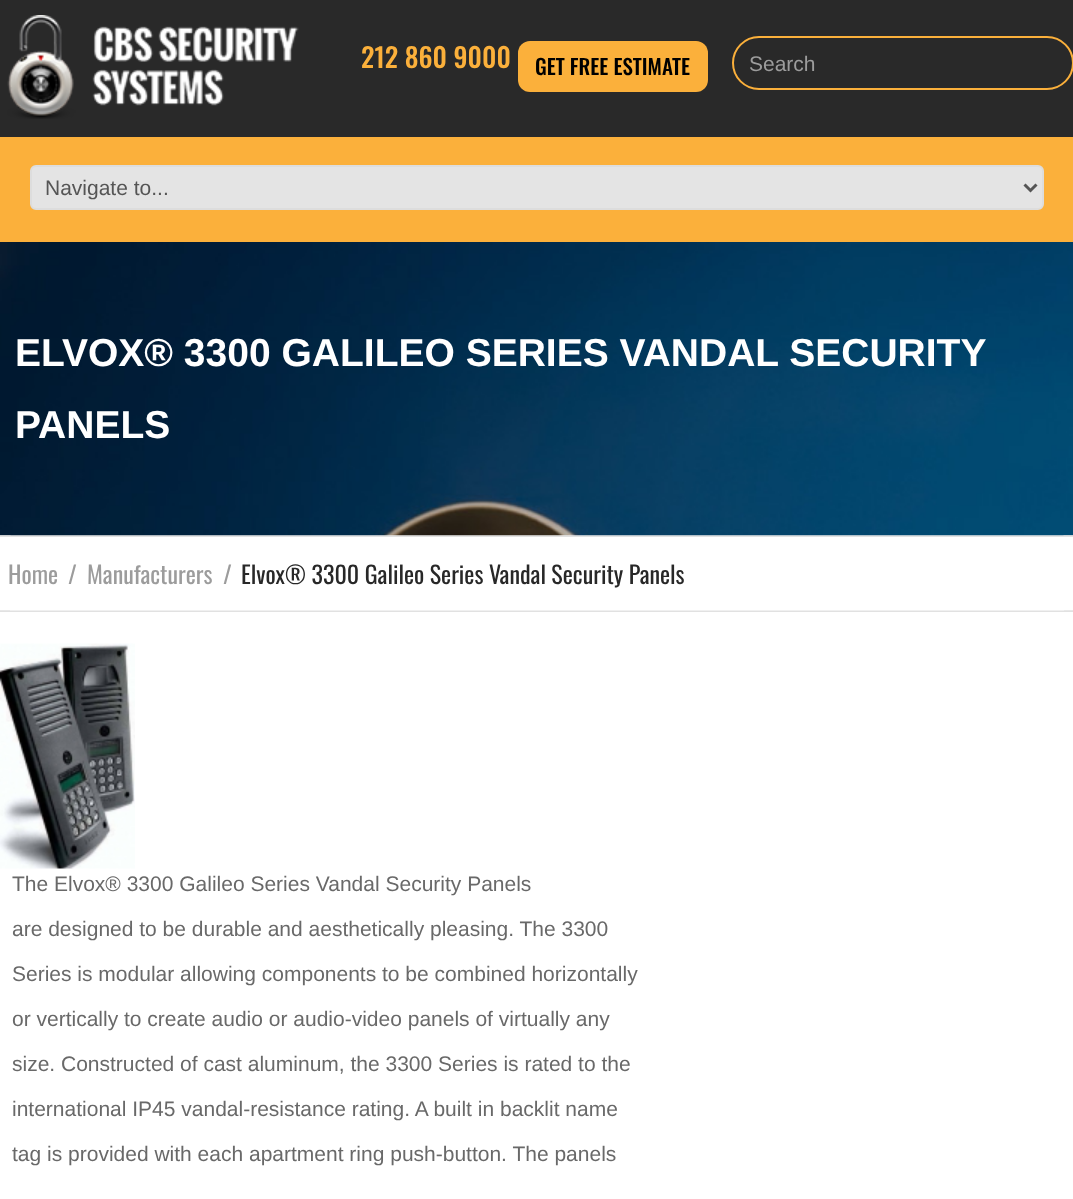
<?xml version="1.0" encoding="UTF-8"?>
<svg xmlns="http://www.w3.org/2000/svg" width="1073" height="1199">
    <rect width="100%" height="100%" fill="#FFFFFF"/>
    <rect x="0" y="0" width="1073" height="137" fill="#292929"/>
    <image x="7" y="15" width="292" height="104" href="img_01.png"/>
    <text x="361" y="68" font-family="Oswald" font-size="27" font-weight="500" fill="#FBB03B">212 860 9000</text>
    <rect x="518" y="41" width="190" height="51" rx="12" fill="#FBB03B"/>
    <text x="535" y="75" font-family="Oswald" font-size="21" font-weight="500" fill="#000000">GET FREE ESTIMATE</text>
    <rect x="733" y="37" width="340" height="52" rx="26" fill="none" stroke="#FBB03B" stroke-width="2"/>
    <text x="749" y="71" font-family="Liberation Sans" font-size="21" fill="#9C9C9C">Search</text>
    <rect x="0" y="137" width="1073" height="105" fill="#FBB03B"/>
    <rect x="31" y="166" width="1012" height="43" rx="5" fill="#E4E4E4" stroke="#DDDDDD" stroke-width="2"/>
    <path d="M 1024.5 184.5 L 1030.5 190.5 L 1036.5 184.5" fill="none" stroke="#555555" stroke-width="3"/>
    <text x="45" y="195" font-family="Liberation Sans" font-size="21" fill="#555555">Navigate to...</text>
    <image x="0" y="242" width="1073" height="294" href="img_02.png"/>
    <text font-family="Liberation Sans" font-size="39" font-weight="700" fill="#FFFFFF">
        <tspan x="15" y="366">ELVOX® 3300 GALILEO SERIES VANDAL SECURITY</tspan>
        <tspan x="15" y="438">PANELS</tspan>
    </text>
    <image x="0" y="610" width="1073" height="2" href="img_03.png"/>
    <image x="0" y="535" width="1073" height="2" href="img_04.png"/>
    <image x="0" y="535" width="11" height="1" href="img_05.png"/>
    <image x="1063" y="535" width="10" height="1" href="img_06.png"/>
    <text x="8" y="584" font-family="Oswald" font-size="24" fill="#9C9C9C">Home</text>
    <text x="68" y="584" font-family="Oswald" font-size="24" fill="#9C9C9C">/</text>
    <text x="87" y="584" font-family="Oswald" font-size="24" fill="#9C9C9C">Manufacturers</text>
    <text x="223" y="584" font-family="Oswald" font-size="24" fill="#9C9C9C">/</text>
    <text x="241" y="584" font-family="Oswald" font-size="24" fill="#282828">Elvox® 3300 Galileo Series Vandal Security Panels</text>
    <rect x="0" y="610" width="10" height="1" fill="#E8E8E8"/>
    <rect x="1064" y="610" width="9" height="1" fill="#E8E8E8"/>
    <image x="0" y="643" width="135" height="226" href="img_07.png"/>
    <text x="12" y="891" font-family="Liberation Sans" font-size="21" fill="#696969">The Elvox® 3300 Galileo Series Vandal Security Panels</text>
    <text x="12" y="936" font-family="Liberation Sans" font-size="21" fill="#696969">are designed to be durable and aesthetically pleasing. The 3300</text>
    <text x="12" y="981" font-family="Liberation Sans" font-size="21" fill="#696969">Series is modular allowing components to be combined horizontally</text>
    <text x="12" y="1026" font-family="Liberation Sans" font-size="21" fill="#696969">or vertically to create audio or audio-video panels of virtually any</text>
    <text x="12" y="1071" font-family="Liberation Sans" font-size="21" fill="#696969">size. Constructed of cast aluminum, the 3300 Series is rated to the</text>
    <text x="12" y="1116" font-family="Liberation Sans" font-size="21" fill="#696969">international IP45 vandal-resistance rating. A built in backlit name</text>
    <text x="12" y="1161" font-family="Liberation Sans" font-size="21" fill="#696969">tag is provided with each apartment ring push-button. The panels</text>
</svg>
